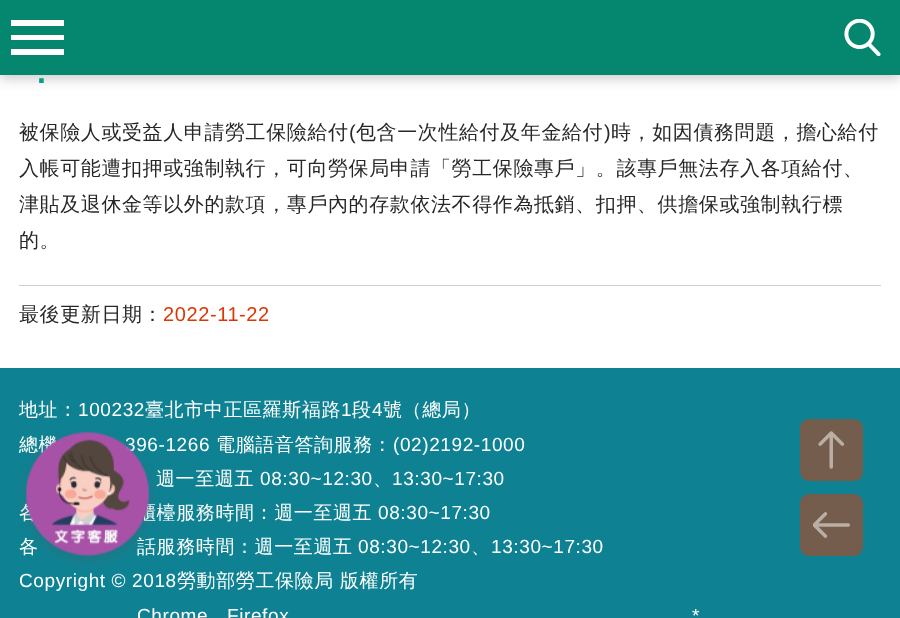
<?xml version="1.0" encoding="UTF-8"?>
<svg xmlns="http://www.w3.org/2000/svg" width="900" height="618">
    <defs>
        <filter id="blur1" x="-50%" y="-200%" width="200%" height="500%"><feGaussianBlur stdDeviation="6"/></filter>
        <clipPath id="clip1"><path d="M 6 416 H 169 V 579 H 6 Z M 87.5 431 C 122 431 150 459 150 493.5 C 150 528 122 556 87.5 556 C 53 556 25 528 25 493.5 C 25 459 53 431 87.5 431 Z" clip-rule="evenodd"/></clipPath>
    </defs>
    <rect width="100%" height="100%" fill="#FFFFFF"/>
    <rect x="0" y="4" width="900" height="75" fill="#575757" fill-opacity="0.3" filter="url(#blur1)"/>
    <rect x="0" y="0" width="900" height="75" fill="#05866F"/>
    <path d="M 11 55 H 64 V 49 H 11 Z M 11 40 H 64 V 35 H 11 Z M 11 20 V 26 H 64 V 20 Z" fill="#FFFFFF"/>
    <image x="844" y="19" width="37" height="37" href="img_01.png"/>
    <text x="37" y="83" font-family="Liberation Sans" font-size="32" font-weight="700" letter-spacing="0.6" fill="#02A189">.</text>
    <text x="19" y="139" font-family="WenQuanYi Zen Hei" font-size="20" font-weight="500" letter-spacing="0.6" fill="#272727">被保險人或受益人申請勞工保險給付</text>
    <text x="349" y="139" font-family="Liberation Sans" font-size="20" letter-spacing="0.6" fill="#272727">(</text>
    <text x="356" y="139" font-family="WenQuanYi Zen Hei" font-size="20" font-weight="500" letter-spacing="0.6" fill="#272727">包含一次性給付及年金給付</text>
    <text x="604" y="139" font-family="Liberation Sans" font-size="20" letter-spacing="0.6" fill="#272727">)</text>
    <text x="611" y="139" font-family="WenQuanYi Zen Hei" font-size="20" font-weight="500" letter-spacing="0.6" fill="#272727">時，如因債務問題，擔心給付</text>
    <text font-family="WenQuanYi Zen Hei" font-size="20" font-weight="500" letter-spacing="0.6" fill="#272727">
        <tspan x="19" y="175">入帳可能遭扣押或強制執行，可向勞保局申請「勞工保險專戶」。該專戶無法存入各項給付、</tspan>
        <tspan x="19" y="211">津貼及退休金等以外的款項，專戶內的存款依法不得作為抵銷、扣押、供擔保或強制執行標</tspan>
        <tspan x="19" y="247">的。</tspan>
    </text>
    <rect x="19" y="285" width="862" height="1" fill="#CCD1D9"/>
    <text x="19" y="321" font-family="WenQuanYi Zen Hei" font-size="20" font-weight="500" letter-spacing="0.6" fill="#272727">最後更新日期：</text>
    <text x="163" y="321" font-family="Liberation Sans" font-size="20" letter-spacing="0.6" fill="#DA3705">2022-11-22</text>
    <rect x="0" y="368" width="900" height="250" fill="#0E8293"/>
    <text x="19" y="416" font-family="WenQuanYi Zen Hei" font-size="19" font-weight="500" letter-spacing="0.6" fill="#FFFFFF">地址：</text>
    <text x="78" y="416" font-family="Liberation Sans" font-size="19" letter-spacing="0.6" fill="#FFFFFF">100232</text>
    <text x="145" y="416" font-family="WenQuanYi Zen Hei" font-size="19" font-weight="500" letter-spacing="0.6" fill="#FFFFFF">臺北市中正區羅斯福路</text>
    <text x="341" y="416" font-family="Liberation Sans" font-size="19" letter-spacing="0.6" fill="#FFFFFF">1</text>
    <text x="352" y="416" font-family="WenQuanYi Zen Hei" font-size="19" font-weight="500" letter-spacing="0.6" fill="#FFFFFF">段</text>
    <text x="372" y="416" font-family="Liberation Sans" font-size="19" letter-spacing="0.6" fill="#FFFFFF">4</text>
    <text x="383" y="416" font-family="WenQuanYi Zen Hei" font-size="19" font-weight="500" letter-spacing="0.6" fill="#FFFFFF">號（總局）</text>
    <text x="19" y="451" font-family="WenQuanYi Zen Hei" font-size="19" font-weight="500" letter-spacing="0.6" fill="#FFFFFF">總機</text>
    <text x="125" y="451" font-family="Liberation Sans" font-size="19" letter-spacing="0.6" fill="#FFFFFF">396-1266</text>
    <text x="216" y="451" font-family="WenQuanYi Zen Hei" font-size="19" font-weight="500" letter-spacing="0.6" fill="#FFFFFF">電腦語音答詢服務：</text>
    <text x="393" y="451" font-family="Liberation Sans" font-size="19" letter-spacing="0.6" fill="#FFFFFF">(02)2192-1000</text>
    <text x="156" y="485" font-family="WenQuanYi Zen Hei" font-size="19" font-weight="500" letter-spacing="0.6" fill="#FFFFFF">週一至週五</text>
    <text x="260" y="485" font-family="Liberation Sans" font-size="19" letter-spacing="0.6" fill="#FFFFFF">08:30~12:30</text>
    <text x="373" y="485" font-family="WenQuanYi Zen Hei" font-size="19" font-weight="500" letter-spacing="0.6" fill="#FFFFFF">、</text>
    <text x="392" y="485" font-family="Liberation Sans" font-size="19" letter-spacing="0.6" fill="#FFFFFF">13:30~17:30</text>
    <text x="19" y="519" font-family="WenQuanYi Zen Hei" font-size="19" font-weight="500" letter-spacing="0.6" fill="#FFFFFF">各</text>
    <text x="137" y="519" font-family="WenQuanYi Zen Hei" font-size="19" font-weight="500" letter-spacing="0.6" fill="#FFFFFF">櫃檯服務時間：週一至週五</text>
    <text x="378" y="519" font-family="Liberation Sans" font-size="19" letter-spacing="0.6" fill="#FFFFFF">08:30~17:30</text>
    <text x="19" y="553" font-family="WenQuanYi Zen Hei" font-size="19" font-weight="500" letter-spacing="0.6" fill="#FFFFFF">各</text>
    <text x="137" y="553" font-family="WenQuanYi Zen Hei" font-size="19" font-weight="500" letter-spacing="0.6" fill="#FFFFFF">話服務時間：週一至週五</text>
    <text x="358" y="553" font-family="Liberation Sans" font-size="19" letter-spacing="0.6" fill="#FFFFFF">08:30~12:30</text>
    <text x="471" y="553" font-family="WenQuanYi Zen Hei" font-size="19" font-weight="500" letter-spacing="0.6" fill="#FFFFFF">、</text>
    <text x="491" y="553" font-family="Liberation Sans" font-size="19" letter-spacing="0.6" fill="#FFFFFF">13:30~17:30</text>
    <text x="19" y="587" font-family="Liberation Sans" font-size="19" letter-spacing="0.6" fill="#FFFFFF">Copyright © 2018</text>
    <text x="177" y="587" font-family="WenQuanYi Zen Hei" font-size="19" font-weight="500" letter-spacing="0.6" fill="#FFFFFF">勞動部勞工保險局</text>
    <text x="340" y="587" font-family="WenQuanYi Zen Hei" font-size="19" font-weight="500" letter-spacing="0.6" fill="#FFFFFF">版權所有</text>
    <text x="137" y="622" font-family="Liberation Sans" font-size="19" letter-spacing="0.6" fill="#FFFFFF">Chrome</text>
    <text x="227" y="622" font-family="Liberation Sans" font-size="19" letter-spacing="0.6" fill="#FFFFFF">Firefox</text>
    <text x="692" y="622" font-family="Liberation Sans" font-size="19" letter-spacing="0.6" fill="#FFFFFF">*</text>
    <g clip-path="url(#clip1)">
        <rect x="25" y="435" width="125" height="125" rx="62.5" fill="#575757" fill-opacity="0.3" filter="url(#blur1)"/>
    </g>
    <image x="26" y="432" width="124" height="125" href="img_02.png"/>
    <rect x="800" y="419" width="63" height="62" rx="9" fill="#745D4C"/>
    <image x="818" y="431" width="27" height="38" href="img_03.png"/>
    <rect x="800" y="494" width="63" height="62" rx="9" fill="#745D4C"/>
    <image x="813" y="512" width="37" height="26" href="img_04.png"/>
</svg>
